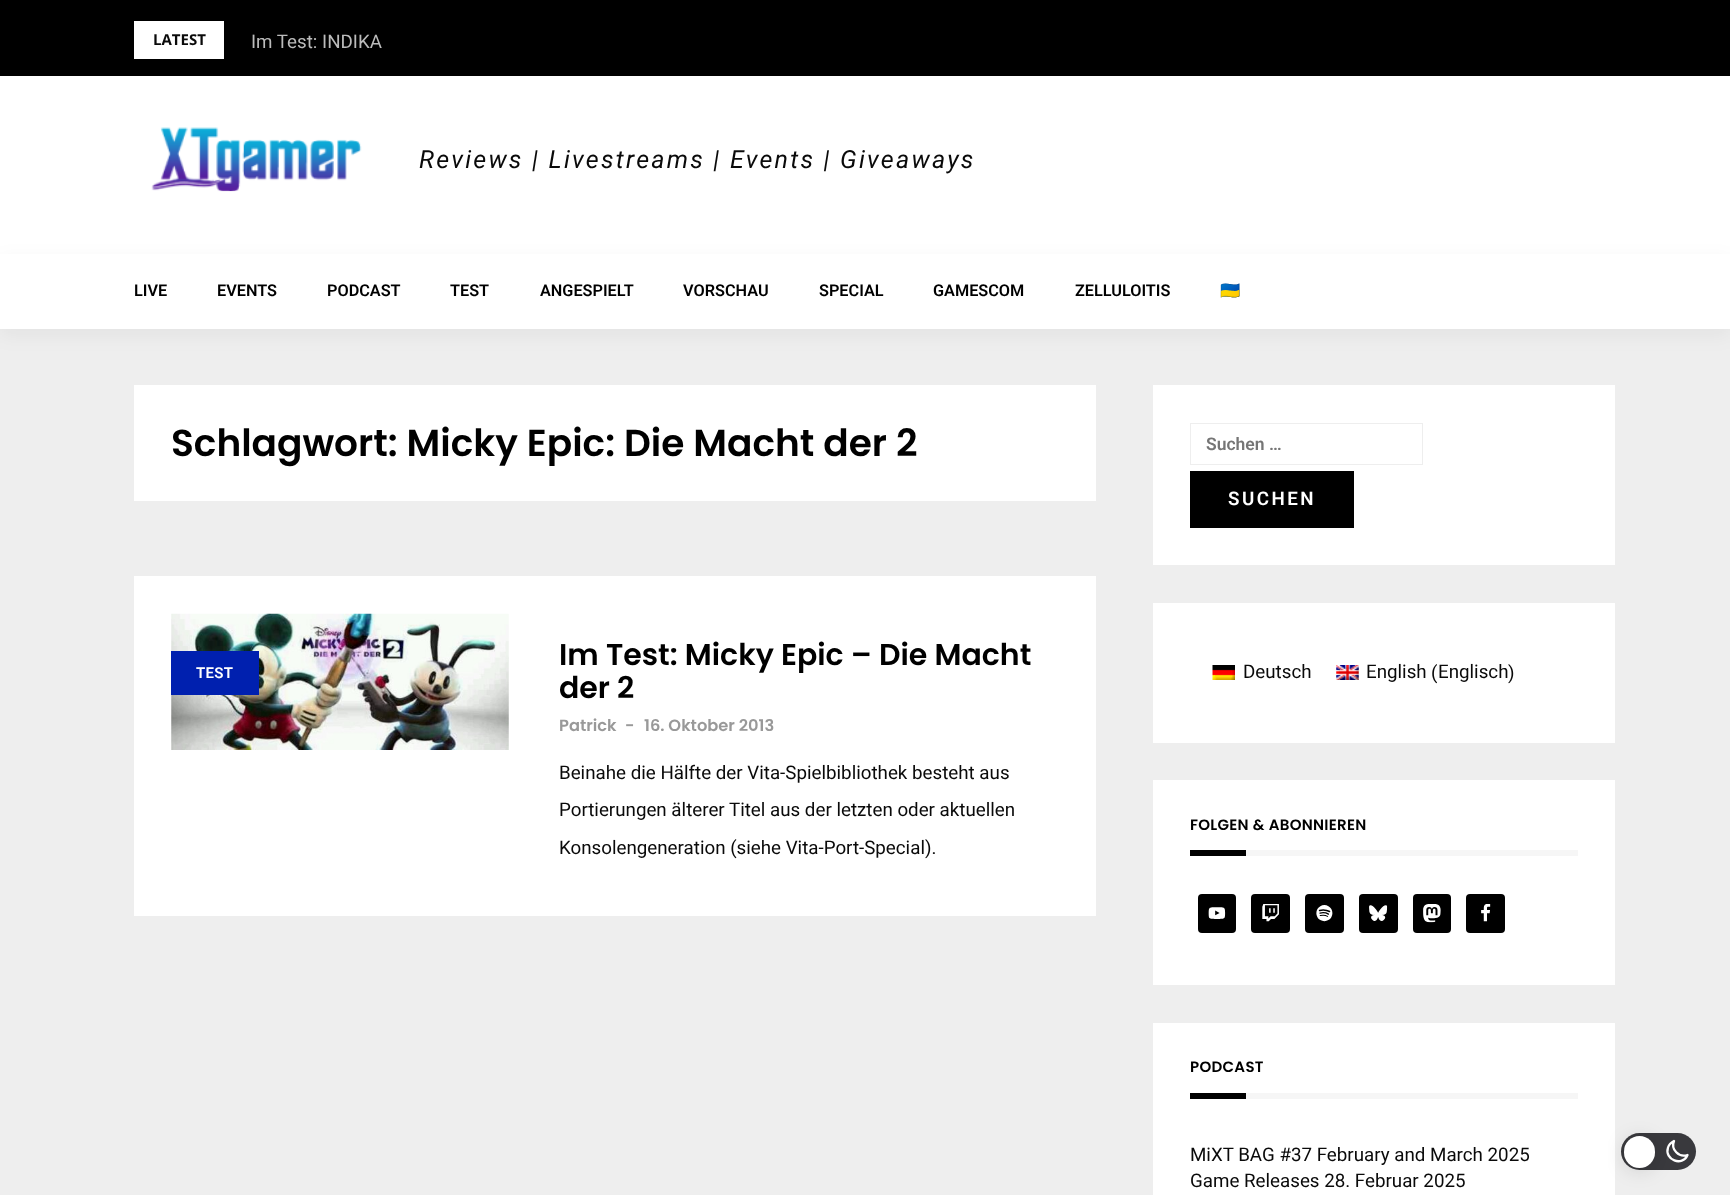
<?xml version="1.0" encoding="UTF-8"?>
<svg xmlns="http://www.w3.org/2000/svg" width="1730" height="1195">
    <defs>
        <filter id="blur1" x="-50%" y="-200%" width="200%" height="500%"><feGaussianBlur stdDeviation="9.5"/></filter>
    </defs>
    <rect width="100%" height="100%" fill="#EEEEEE"/>
    <rect x="0" y="0" width="1730" height="76" fill="#000000"/>
    <rect x="134" y="21" width="90" height="38" fill="#FFFFFF"/>
    <text x="153" y="45" font-family="Open Sans" font-size="15" font-weight="700" fill="#0A0A0A">LATEST</text>
    <text x="251" y="48" font-family="Roboto" font-size="18.75" fill="#BBBBBB">Im Test: INDIKA</text>
    <rect x="0" y="76" width="1730" height="178" fill="#FFFFFF"/>
    <image x="151" y="127" width="211" height="65" href="img_01.png"/>
    <text x="419" y="168" font-family="Roboto" font-size="25" font-style="italic" letter-spacing="2.25" fill="#0A0A0A">Reviews | Livestreams | Events | Giveaways</text>
    <rect x="0" y="260" width="1730" height="75" fill="#000000" fill-opacity="0.05" filter="url(#blur1)"/>
    <rect x="0" y="254" width="1730" height="75" fill="#FFFFFF"/>
    <text x="134" y="296" font-family="Roboto" font-size="16.25" font-weight="600" fill="#000000">LIVE</text>
    <text x="217" y="296" font-family="Roboto" font-size="16.25" font-weight="600" fill="#000000">EVENTS</text>
    <text x="327" y="296" font-family="Roboto" font-size="16.25" font-weight="600" fill="#000000">PODCAST</text>
    <text x="450" y="296" font-family="Roboto" font-size="16.25" font-weight="600" fill="#000000">TEST</text>
    <text x="540" y="296" font-family="Roboto" font-size="16.25" font-weight="600" fill="#000000">ANGESPIELT</text>
    <text x="683" y="296" font-family="Roboto" font-size="16.25" font-weight="600" fill="#000000">VORSCHAU</text>
    <text x="819" y="296" font-family="Roboto" font-size="16.25" font-weight="600" fill="#000000">SPECIAL</text>
    <text x="933" y="296" font-family="Roboto" font-size="16.25" font-weight="600" fill="#000000">GAMESCOM</text>
    <text x="1075" y="296" font-family="Roboto" font-size="16.25" font-weight="600" fill="#000000">ZELLULOITIS</text>
    <text x="1220" y="296" font-family="Noto Color Emoji" font-size="16.25" font-weight="700" fill="#000000">🇺🇦</text>
    <rect x="134" y="385" width="962" height="116" fill="#FFFFFF"/>
    <text x="171" y="456" font-family="Poppins" font-size="37.5" font-weight="600" fill="#000000">Schlagwort: Micky Epic: Die Macht der 2</text>
    <rect x="134" y="576" width="962" height="340" fill="#FFFFFF"/>
    <image x="171" y="613" width="338" height="137" href="img_02.png"/>
    <rect x="171" y="651" width="88" height="44" fill="#0020AF"/>
    <text x="196" y="678" font-family="Roboto" font-size="15" font-weight="600" letter-spacing="0.3" fill="#FFFFFF">TEST</text>
    <text font-family="Poppins" font-size="30" font-weight="600" fill="#000000">
        <tspan x="559" y="665">Im Test: Micky Epic – Die Macht</tspan>
        <tspan x="559" y="698">der 2</tspan>
    </text>
    <text x="559" y="731" font-family="Poppins" font-size="16.25" font-weight="600" fill="#999999">Patrick</text>
    <text x="625" y="731" font-family="Poppins" font-size="16.25" font-weight="600" fill="#999999">-</text>
    <text x="644" y="731" font-family="Poppins" font-size="16.25" font-weight="600" fill="#999999">16. Oktober 2013</text>
    <text font-family="Roboto" font-size="18.75" fill="#0A0A0A">
        <tspan x="559" y="779">Beinahe die Hälfte der Vita-Spielbibliothek besteht aus</tspan>
        <tspan x="559" y="816">Portierungen älterer Titel aus der letzten oder aktuellen</tspan>
    </text>
    <text x="559" y="854" font-family="Roboto" font-size="18.75" fill="#0A0A0A">Konsolengeneration (siehe Vita-Port-Special).</text>
    <rect x="1153" y="385" width="462" height="180" fill="#FFFFFF"/>
    <rect x="1190.5" y="423.5" width="232" height="41" fill="none" stroke="#EEEEEE"/>
    <text x="1206" y="450" font-family="Roboto" font-size="17.5" font-weight="600" fill="#757575">Suchen …</text>
    <rect x="1190" y="471" width="164" height="57" fill="#000000"/>
    <text x="1228" y="505" font-family="Roboto" font-size="18.75" font-weight="600" letter-spacing="2.5" fill="#FFFFFF">SUCHEN</text>
    <rect x="1153" y="603" width="462" height="140" fill="#FFFFFF"/>
    <image x="1212" y="665" width="23" height="15" href="img_03.png"/>
    <text x="1243" y="678" font-family="Roboto" font-size="18.75" fill="#0A0A0A">Deutsch</text>
    <image x="1336" y="665" width="23" height="15" href="img_04.png"/>
    <text x="1366" y="678" font-family="Roboto" font-size="18.75" fill="#0A0A0A">English</text>
    <text x="1431" y="679" font-family="Roboto" font-size="18.75" fill="#0A0A0A">(</text>
    <text x="1438" y="678" font-family="Roboto" font-size="18.75" fill="#0A0A0A">Englisch</text>
    <text x="1508" y="679" font-family="Roboto" font-size="18.75" fill="#0A0A0A">)</text>
    <rect x="1153" y="780" width="462" height="205" fill="#FFFFFF"/>
    <rect x="1246" y="850" width="332" height="6" fill="#F6F6F6"/>
    <text x="1190" y="830" font-family="Poppins" font-size="15" font-weight="600" letter-spacing="0.3" fill="#000000">FOLGEN &amp; ABONNIEREN</text>
    <rect x="1190" y="850" width="56" height="6" fill="#000000"/>
    <rect x="1198" y="894" width="38" height="39" rx="4" fill="#000000"/>
    <image x="1208" y="907" width="18" height="12" href="img_05.png"/>
    <rect x="1251" y="894" width="39" height="39" rx="4" fill="#000000"/>
    <image x="1262" y="904" width="17" height="18" href="img_06.png"/>
    <rect x="1305" y="894" width="39" height="39" rx="4" fill="#000000"/>
    <image x="1316" y="905" width="17" height="17" href="img_07.png"/>
    <rect x="1359" y="894" width="39" height="39" rx="4" fill="#000000"/>
    <image x="1369" y="905" width="19" height="16" href="img_08.png"/>
    <rect x="1413" y="894" width="38" height="39" rx="4" fill="#000000"/>
    <image x="1423" y="904" width="18" height="19" href="img_09.png"/>
    <rect x="1466" y="894" width="39" height="39" rx="4" fill="#000000"/>
    <image x="1481" y="904" width="10" height="18" href="img_10.png"/>
    <rect x="1153" y="1023" width="462" height="172" fill="#FFFFFF"/>
    <rect x="1246" y="1093" width="332" height="6" fill="#F6F6F6"/>
    <text x="1190" y="1072" font-family="Poppins" font-size="15" font-weight="600" letter-spacing="0.3" fill="#000000">PODCAST</text>
    <rect x="1190" y="1093" width="56" height="6" fill="#000000"/>
    <text font-family="Roboto" font-size="18.75" fill="#0A0A0A">
        <tspan x="1190" y="1161">MiXT BAG #37 February and March 2025</tspan>
        <tspan x="1190" y="1187">Game Releases 28. Februar 2025</tspan>
    </text>
    <rect x="1621" y="1133" width="75" height="37" rx="18.5" fill="#39393D"/>
    <path d="M 1687.5 1155 C 1679 1158 1670.5 1149.5 1674 1141 C 1671 1142.5 1669 1144.5 1668 1147.5 C 1664 1160 1682.5 1167 1687.5 1155 Z" fill="none" stroke="#FFFFFF" stroke-width="2.3" stroke-linecap="round" stroke-linejoin="round"/>
    <rect x="1624" y="1139" width="31" height="31" rx="15.5" fill="#000000" fill-opacity="0.15" filter="url(#blur1)"/>
    <rect x="1624" y="1136" width="31" height="32" rx="15.5" fill="#FFFFFF"/>
</svg>
